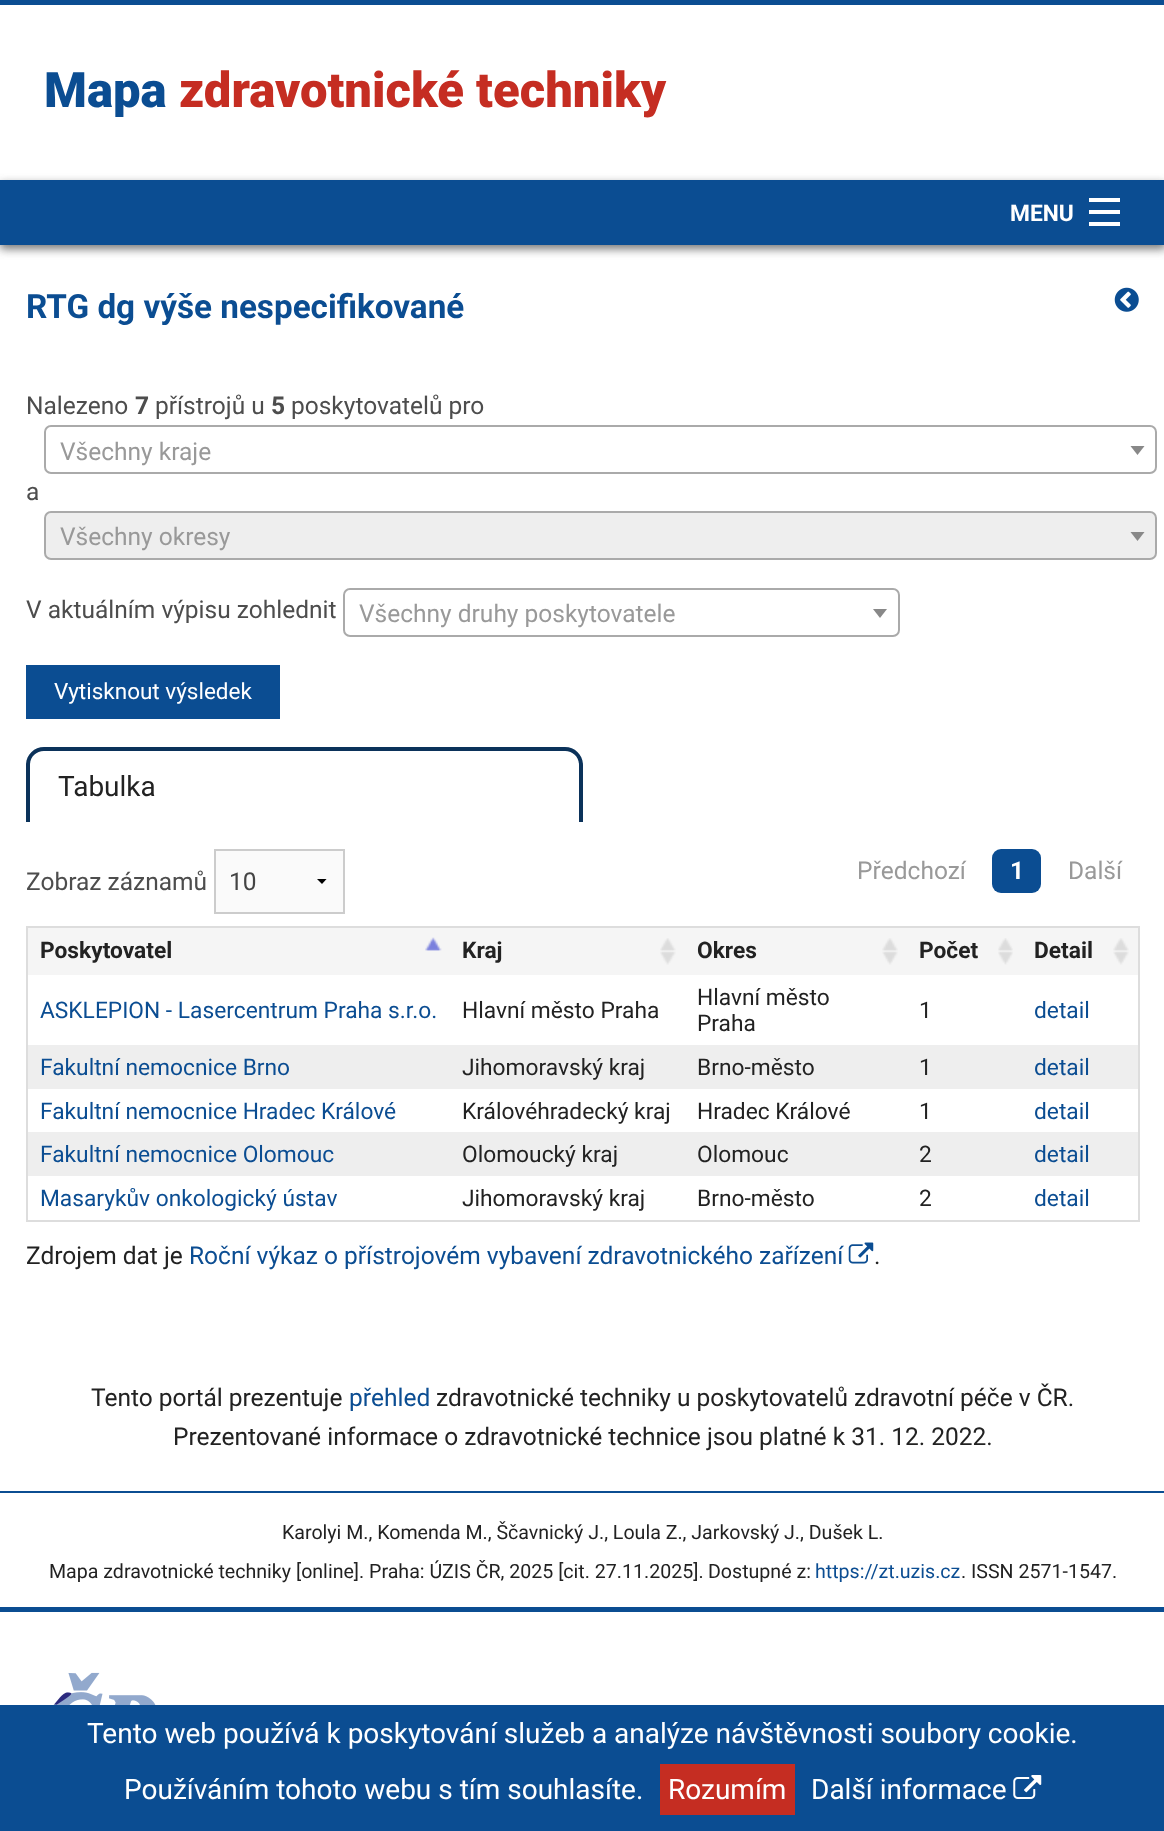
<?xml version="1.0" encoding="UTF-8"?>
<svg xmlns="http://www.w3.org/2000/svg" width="1164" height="1831">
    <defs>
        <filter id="blur1" x="-50%" y="-200%" width="200%" height="500%"><feGaussianBlur stdDeviation="5"/></filter>
        <clipPath id="clip1"><rect x="301" y="879" width="42" height="5"/></clipPath>
    </defs>
    <rect width="100%" height="100%" fill="#FFFFFF"/>
    <rect x="0" y="0" width="1164" height="5" fill="#0B4D92"/>
    <text x="44" y="107" font-family="Roboto" font-size="49" font-weight="900" fill="#0B4D92">Mapa</text>
    <text x="179" y="107" font-family="Roboto" font-size="49" font-weight="900" fill="#C52D22">zdravotnické techniky</text>
    <rect x="0" y="184" width="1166" height="65" fill="#777777" filter="url(#blur1)"/>
    <rect x="0" y="180" width="1164" height="65" fill="#0B4D92"/>
    <text x="1010" y="221" font-family="Roboto" font-size="22.75" font-weight="700" fill="#FFFFFF">MENU</text>
    <rect x="1089" y="222" width="31" height="4" fill="#FFFFFF"/>
    <rect x="1089" y="210" width="31" height="4" fill="#FFFFFF"/>
    <rect x="1089" y="198" width="31" height="4" fill="#FFFFFF"/>
    <text x="26" y="318" font-family="Roboto" font-size="33.25" font-weight="700" fill="#0B4D92">RTG dg výše nespecifikované</text>
    <image x="1114" y="287" width="25" height="25" href="img_01.png"/>
    <text x="26" y="414" font-family="Roboto" font-size="24.5" fill="#4D4D4D">Nalezeno</text>
    <text x="135" y="414" font-family="Roboto" font-size="24.5" font-weight="700" fill="#4D4D4D">7</text>
    <text x="155" y="414" font-family="Roboto" font-size="24.5" fill="#4D4D4D">přístrojů u</text>
    <text x="271" y="414" font-family="Roboto" font-size="24.5" font-weight="700" fill="#4D4D4D">5</text>
    <text x="291" y="414" font-family="Roboto" font-size="24.5" fill="#4D4D4D">poskytovatelů pro</text>
    <rect x="45" y="426" width="1111" height="47" rx="6" fill="none" stroke="#AAAAAA" stroke-width="2"/>
    <text x="60" y="460" font-family="Roboto" font-size="24.5" fill="#999999">Všechny kraje</text>
    <path d="M 1130.5 446 H 1144.5 L 1137.5 455 Z" fill="#888888"/>
    <text x="26" y="500" font-family="Roboto" font-size="24.5" fill="#4D4D4D">a</text>
    <rect x="45" y="512" width="1111" height="47" rx="6" fill="#EEEEEE" stroke="#AAAAAA" stroke-width="2"/>
    <text x="60" y="545" font-family="Roboto" font-size="24.5" fill="#999999">Všechny okresy</text>
    <path d="M 1130.5 532 H 1144.5 L 1137.5 541 Z" fill="#888888"/>
    <text x="26" y="618" font-family="Roboto" font-size="24.5" fill="#4D4D4D">V aktuálním výpisu zohlednit</text>
    <rect x="344" y="589" width="555" height="47" rx="6" fill="none" stroke="#AAAAAA" stroke-width="2"/>
    <text x="359" y="622" font-family="Roboto" font-size="24.5" fill="#999999">Všechny druhy poskytovatele</text>
    <path d="M 873 609 H 887 L 880 618 Z" fill="#888888"/>
    <rect x="26" y="665" width="254" height="54" fill="#0B4D92"/>
    <text x="54" y="699" font-family="Roboto" font-size="22.5" fill="#FFFFFF">Vytisknout výsledek</text>
    <path d="M 44 747 H 565 C 575 747 583 755 583 765 V 822 H 26 V 765 C 26 755 34 747 44 747 Z M 44 751 H 565 C 573 751 579 757 579 765 V 822 H 30 V 765 C 30 757 36 751 44 751 Z" fill="#0B325A" fill-rule="evenodd"/>
    <path d="M 48 751 H 561 C 571 751 579 759 579 769 V 823 H 30 V 769 C 30 759 38 751 48 751 Z" fill="#FFFFFF"/>
    <text x="58" y="796" font-family="Roboto" font-size="28" fill="#222222">Tabulka</text>
    <text x="26" y="890" font-family="Roboto" font-size="24.5" fill="#4D4D4D">Zobraz záznamů</text>
    <rect x="216" y="851" width="127" height="61" fill="#FAFAFA"/>
    <g clip-path="url(#clip1)">
        <path d="M 327 878.5 L 322 884 L 316.5 878.5 Z" fill="#000000"/>
    </g>
    <rect x="215" y="850" width="129" height="63" fill="none" stroke="#CCCCCC" stroke-width="2"/>
    <text x="229" y="890" font-family="Roboto" font-size="24.5" fill="#444444">10</text>
    <text x="857" y="879" font-family="Roboto" font-size="24.5" fill="#999999">Předchozí</text>
    <rect x="992" y="849" width="49" height="44" rx="9" fill="#0B4D92"/>
    <text x="1010" y="879" font-family="Roboto" font-size="24.5" font-weight="700" fill="#FFFFFF">1</text>
    <text x="1068" y="879" font-family="Roboto" font-size="24.5" fill="#999999">Další</text>
    <rect x="26" y="926" width="1113" height="2" fill="#DDDDDD"/>
    <rect x="1138" y="926" width="2" height="296" fill="#DDDDDD"/>
    <rect x="26" y="1220" width="1113" height="2" fill="#DDDDDD"/>
    <rect x="26" y="926" width="2" height="296" fill="#DDDDDD"/>
    <rect x="28" y="928" width="1110" height="47" fill="#F5F5F5"/>
    <image x="425" y="937" width="17" height="14" href="img_02.png"/>
    <text x="40" y="958" font-family="Roboto" font-size="22.75" font-weight="700" fill="#222222">Poskytovatel</text>
    <image x="660" y="938" width="16" height="27" href="img_03.png"/>
    <text x="462" y="958" font-family="Roboto" font-size="22.75" font-weight="700" fill="#222222">Kraj</text>
    <image x="882" y="938" width="16" height="27" href="img_04.png"/>
    <text x="697" y="958" font-family="Roboto" font-size="22.75" font-weight="700" fill="#222222">Okres</text>
    <image x="998" y="938" width="15" height="27" href="img_05.png"/>
    <text x="919" y="958" font-family="Roboto" font-size="22.75" font-weight="700" fill="#222222">Počet</text>
    <image x="1113" y="938" width="16" height="27" href="img_04.png"/>
    <text x="1034" y="958" font-family="Roboto" font-size="22.75" font-weight="700" fill="#222222">Detail</text>
    <text x="40" y="1018" font-family="Roboto" font-size="22.75" fill="#0B4D92">ASKLEPION - Lasercentrum Praha s.r.o.</text>
    <text x="462" y="1018" font-family="Roboto" font-size="22.75" fill="#222222">Hlavní město Praha</text>
    <text font-family="Roboto" font-size="22.75" fill="#222222">
        <tspan x="697" y="1005">Hlavní město</tspan>
        <tspan x="697" y="1031">Praha</tspan>
    </text>
    <text x="919" y="1018" font-family="Roboto" font-size="22.75" fill="#222222">1</text>
    <text x="1034" y="1018" font-family="Roboto" font-size="22.75" fill="#0B4D92">detail</text>
    <rect x="28" y="1045" width="1110" height="44" fill="#EEEEEE"/>
    <text x="40" y="1075" font-family="Roboto" font-size="22.75" fill="#0B4D92">Fakultní nemocnice Brno</text>
    <text x="462" y="1075" font-family="Roboto" font-size="22.75" fill="#222222">Jihomoravský kraj</text>
    <text x="697" y="1075" font-family="Roboto" font-size="22.75" fill="#222222">Brno-město</text>
    <text x="919" y="1075" font-family="Roboto" font-size="22.75" fill="#222222">1</text>
    <text x="1034" y="1075" font-family="Roboto" font-size="22.75" fill="#0B4D92">detail</text>
    <text x="40" y="1119" font-family="Roboto" font-size="22.75" fill="#0B4D92">Fakultní nemocnice Hradec Králové</text>
    <text x="462" y="1119" font-family="Roboto" font-size="22.75" fill="#222222">Královéhradecký kraj</text>
    <text x="697" y="1119" font-family="Roboto" font-size="22.75" fill="#222222">Hradec Králové</text>
    <text x="919" y="1119" font-family="Roboto" font-size="22.75" fill="#222222">1</text>
    <text x="1034" y="1119" font-family="Roboto" font-size="22.75" fill="#0B4D92">detail</text>
    <rect x="28" y="1132" width="1110" height="44" fill="#EEEEEE"/>
    <text x="40" y="1162" font-family="Roboto" font-size="22.75" fill="#0B4D92">Fakultní nemocnice Olomouc</text>
    <text x="462" y="1162" font-family="Roboto" font-size="22.75" fill="#222222">Olomoucký kraj</text>
    <text x="697" y="1162" font-family="Roboto" font-size="22.75" fill="#222222">Olomouc</text>
    <text x="919" y="1162" font-family="Roboto" font-size="22.75" fill="#222222">2</text>
    <text x="1034" y="1162" font-family="Roboto" font-size="22.75" fill="#0B4D92">detail</text>
    <text x="40" y="1206" font-family="Roboto" font-size="22.75" fill="#0B4D92">Masarykův onkologický ústav</text>
    <text x="462" y="1206" font-family="Roboto" font-size="22.75" fill="#222222">Jihomoravský kraj</text>
    <text x="697" y="1206" font-family="Roboto" font-size="22.75" fill="#222222">Brno-město</text>
    <text x="919" y="1206" font-family="Roboto" font-size="22.75" fill="#222222">2</text>
    <text x="1034" y="1206" font-family="Roboto" font-size="22.75" fill="#0B4D92">detail</text>
    <text x="26" y="1264" font-family="Roboto" font-size="24.5" fill="#222222">Zdrojem dat je</text>
    <text x="189" y="1264" font-family="Roboto" font-size="24.5" fill="#0B4D92">Roční výkaz o přístrojovém vybavení zdravotnického zařízení</text>
    <image x="848" y="1242" width="26" height="22" href="img_06.png"/>
    <text x="874" y="1264" font-family="Roboto" font-size="24.5" fill="#222222">.</text>
    <text x="91" y="1406" font-family="Roboto" font-size="24.5" fill="#222222">Tento portál prezentuje</text>
    <text x="349" y="1406" font-family="Roboto" font-size="24.5" fill="#0B4D92">přehled</text>
    <text x="436" y="1406" font-family="Roboto" font-size="24.5" fill="#222222">zdravotnické techniky u poskytovatelů zdravotní péče v ČR.</text>
    <text x="173" y="1445" font-family="Roboto" font-size="24.5" fill="#222222">Prezentované informace o zdravotnické technice jsou platné k 31. 12. 2022.</text>
    <rect x="0" y="1491" width="1164" height="2" fill="#0B4D92"/>
    <text x="282" y="1539" font-family="Roboto" font-size="19.6" fill="#222222">Karolyi M., Komenda M., Ščavnický J., Loula Z., Jarkovský J., Dušek L.</text>
    <text x="49" y="1578" font-family="Roboto" font-size="19.6" fill="#222222">Mapa zdravotnické techniky [online]. Praha: ÚZIS ČR, 2025 [cit. 27.11.2025].</text>
    <text x="708" y="1578" font-family="Roboto" font-size="19.6" fill="#222222">Dostupné z:</text>
    <text x="815" y="1578" font-family="Roboto" font-size="19.6" fill="#0B4D92">https://zt.uzis.cz</text>
    <text x="961" y="1578" font-family="Roboto" font-size="19.6" fill="#222222">. ISSN 2571-1547.</text>
    <rect x="0" y="1607" width="1164" height="5" fill="#0B4D92"/>
    <image x="53" y="1672" width="103" height="33" href="img_07.png"/>
    <rect x="0" y="1705" width="1164" height="126" fill="#0B4D92"/>
    <text x="87" y="1743" font-family="Roboto" font-size="28" fill="#FFFFFF">Tento web používá k poskytování služeb a analýze návštěvnosti soubory cookie.</text>
    <text x="124" y="1799" font-family="Roboto" font-size="28" fill="#FFFFFF">Používáním tohoto webu s tím souhlasíte.</text>
    <rect x="660" y="1764" width="135" height="51" fill="#C52D22"/>
    <text x="668" y="1799" font-family="Roboto" font-size="28" fill="#FFFFFF">Rozumím</text>
    <text x="811" y="1799" font-family="Roboto" font-size="28" fill="#FFFFFF">Další informace</text>
    <image x="1013" y="1775" width="29" height="24" href="img_08.png"/>
</svg>
